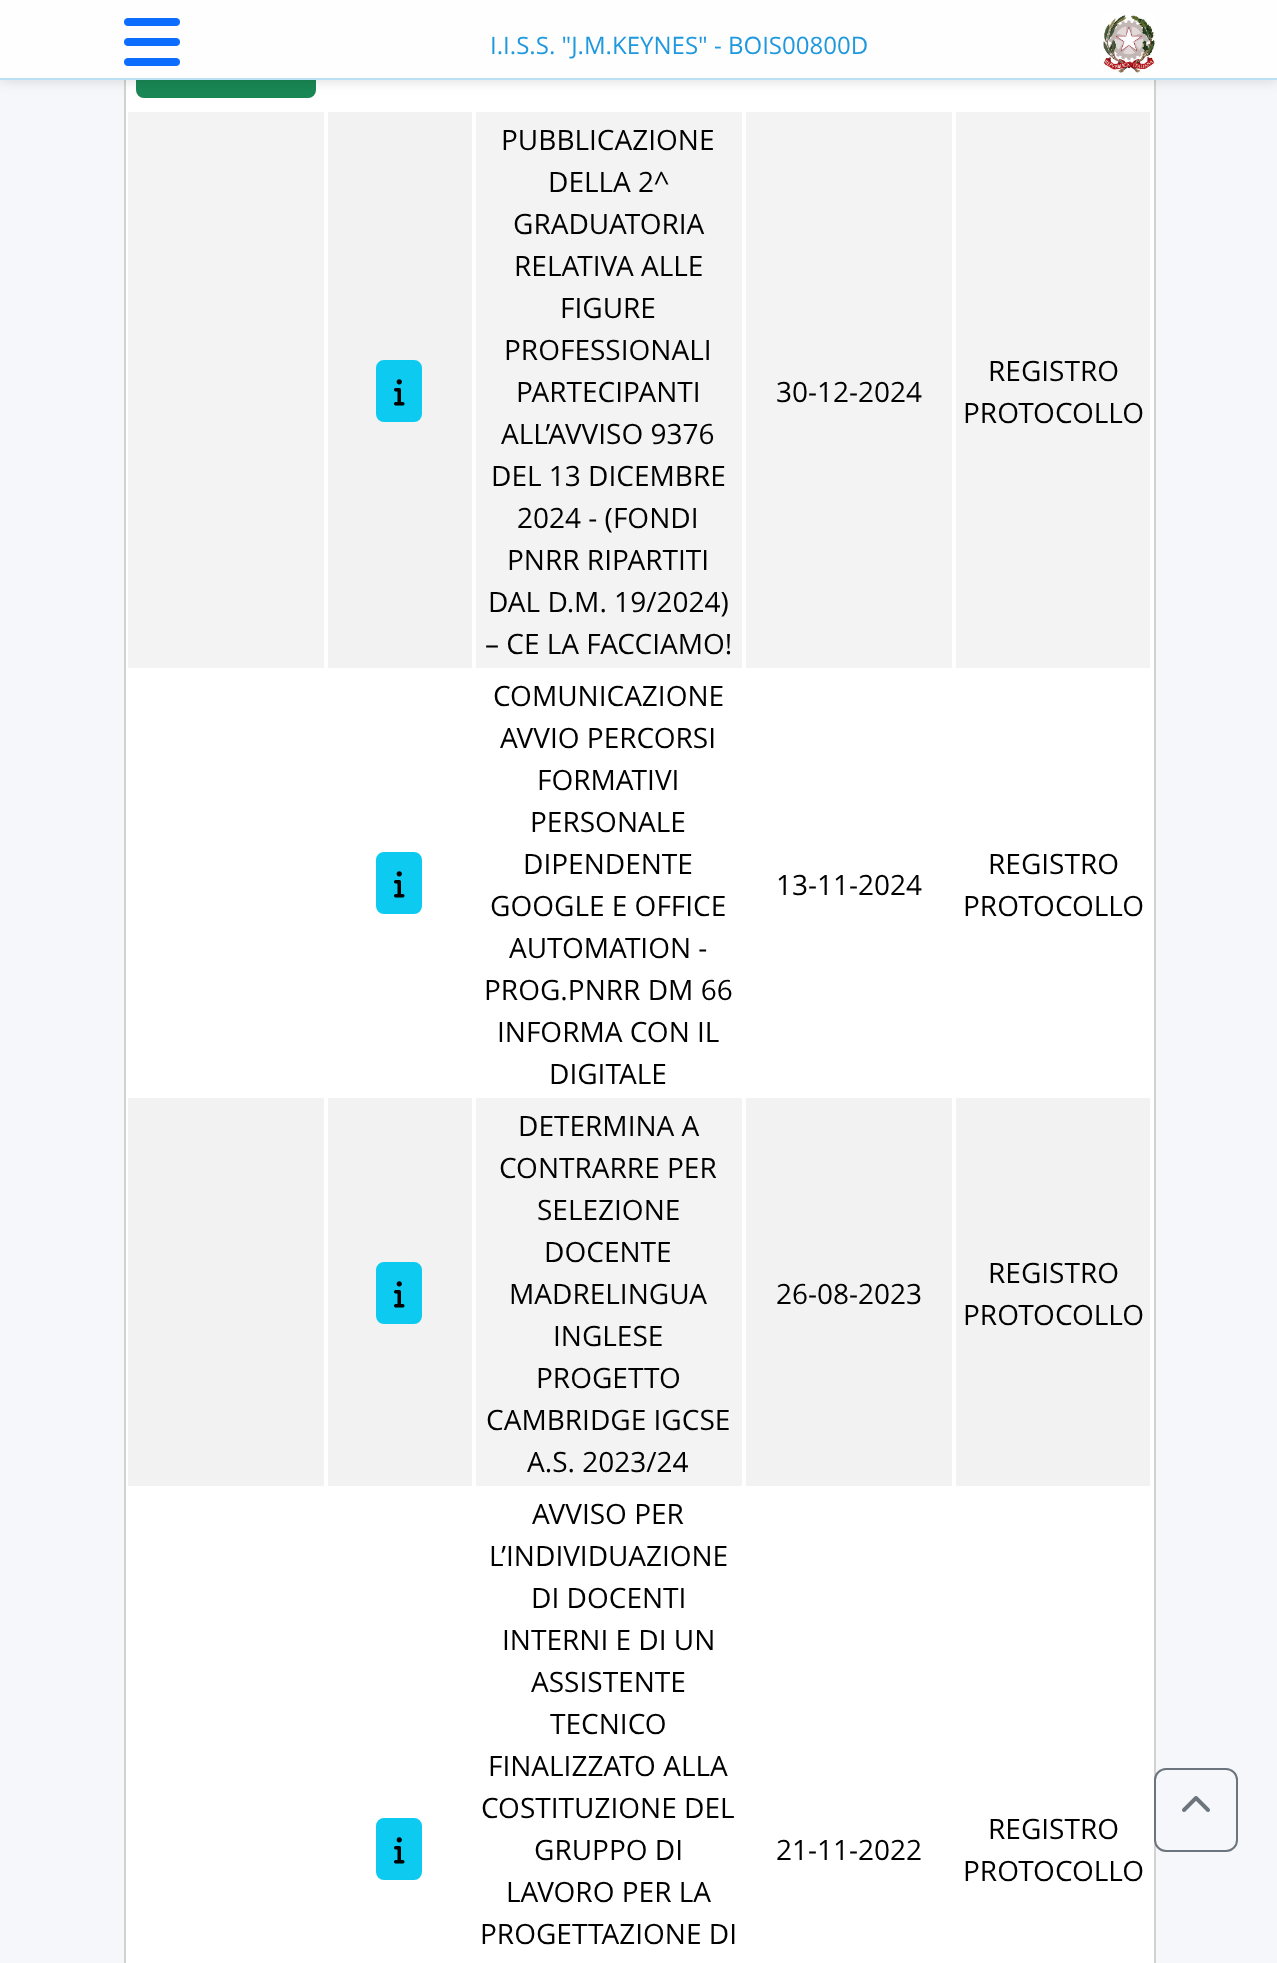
<?xml version="1.0" encoding="UTF-8"?>
<svg xmlns="http://www.w3.org/2000/svg" width="1277" height="1963">
    <defs>
        <filter id="blur1" x="-50%" y="-200%" width="200%" height="500%"><feGaussianBlur stdDeviation="7"/></filter>
    </defs>
    <rect width="100%" height="100%" fill="#F5F7FA"/>
    <rect x="126" y="80" width="1028" height="1883" fill="#FFFFFF"/>
    <rect x="125" y="-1" width="1030" height="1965" fill="none" stroke="#D2D2D2" stroke-width="2"/>
    <rect x="137" y="37" width="178" height="60" rx="7" fill="#198754" stroke="#198754" stroke-width="2"/>
    <rect x="0" y="0" width="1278" height="80" fill="#000000" fill-opacity="0.15" filter="url(#blur1)"/>
    <rect x="0" y="0" width="1277" height="78" fill="#FEFEFE"/>
    <rect x="0" y="78" width="1277" height="2" fill="#BBDFF4"/>
    <image x="124" y="18" width="56" height="48" href="img_01.png"/>
    <text x="490" y="54" font-family="Open Sans" font-size="24" fill="#1F98DE">I.I.S.S. "J.M.KEYNES" - BOIS00800D</text>
    <image x="1102" y="14" width="54" height="59" href="img_02.png"/>
    <rect x="128" y="112" width="196" height="556" fill="#F3F3F3"/>
    <rect x="328" y="112" width="144" height="556" fill="#F2F2F2"/>
    <rect x="377" y="361" width="44" height="60" rx="7" fill="#0DCAF0" stroke="#0DCAF0" stroke-width="2"/>
    <image x="394" y="379" width="11" height="27" href="img_03.png"/>
    <rect x="476" y="112" width="266" height="556" fill="#F3F3F3"/>
    <text x="501" y="150" font-family="Open Sans" font-size="28" fill="#000000">PUBBLICAZIONE</text>
    <text x="548" y="192" font-family="Open Sans" font-size="28" fill="#000000">DELLA 2^</text>
    <text x="513" y="234" font-family="Open Sans" font-size="28" fill="#000000">GRADUATORIA</text>
    <text x="514" y="276" font-family="Open Sans" font-size="28" fill="#000000">RELATIVA ALLE</text>
    <text x="560" y="318" font-family="Open Sans" font-size="28" fill="#000000">FIGURE</text>
    <text x="504" y="360" font-family="Open Sans" font-size="28" fill="#000000">PROFESSIONALI</text>
    <text x="516" y="402" font-family="Open Sans" font-size="28" fill="#000000">PARTECIPANTI</text>
    <text x="501" y="444" font-family="Open Sans" font-size="28" fill="#000000">ALL’AVVISO 9376</text>
    <text x="491" y="486" font-family="Open Sans" font-size="28" fill="#000000">DEL 13 DICEMBRE</text>
    <text x="517" y="528" font-family="Open Sans" font-size="28" fill="#000000">2024 - (FONDI</text>
    <text x="507" y="570" font-family="Open Sans" font-size="28" fill="#000000">PNRR RIPARTITI</text>
    <text x="488" y="612" font-family="Open Sans" font-size="28" fill="#000000">DAL D.M. 19/2024)</text>
    <text x="485" y="654" font-family="Open Sans" font-size="28" fill="#000000">– CE LA FACCIAMO!</text>
    <rect x="746" y="112" width="206" height="556" fill="#F3F3F3"/>
    <text x="776" y="402" font-family="Open Sans" font-size="28" fill="#000000">30-12-2024</text>
    <rect x="956" y="112" width="194" height="556" fill="#F3F3F3"/>
    <text x="988" y="381" font-family="Open Sans" font-size="28" fill="#000000">REGISTRO</text>
    <text x="963" y="423" font-family="Open Sans" font-size="28" fill="#000000">PROTOCOLLO</text>
    <rect x="377" y="853" width="44" height="60" rx="7" fill="#0DCAF0" stroke="#0DCAF0" stroke-width="2"/>
    <image x="394" y="871" width="11" height="27" href="img_03.png"/>
    <text x="493" y="706" font-family="Open Sans" font-size="28" fill="#000000">COMUNICAZIONE</text>
    <text x="500" y="748" font-family="Open Sans" font-size="28" fill="#000000">AVVIO PERCORSI</text>
    <text x="537" y="790" font-family="Open Sans" font-size="28" fill="#000000">FORMATIVI</text>
    <text x="530" y="832" font-family="Open Sans" font-size="28" fill="#000000">PERSONALE</text>
    <text x="523" y="874" font-family="Open Sans" font-size="28" fill="#000000">DIPENDENTE</text>
    <text x="490" y="916" font-family="Open Sans" font-size="28" fill="#000000">GOOGLE E OFFICE</text>
    <text x="509" y="958" font-family="Open Sans" font-size="28" fill="#000000">AUTOMATION -</text>
    <text x="484" y="1000" font-family="Open Sans" font-size="28" fill="#000000">PROG.PNRR DM 66</text>
    <text x="497" y="1042" font-family="Open Sans" font-size="28" fill="#000000">INFORMA CON IL</text>
    <text x="549" y="1084" font-family="Open Sans" font-size="28" fill="#000000">DIGITALE</text>
    <text x="776" y="895" font-family="Open Sans" font-size="28" fill="#000000">13-11-2024</text>
    <text x="988" y="874" font-family="Open Sans" font-size="28" fill="#000000">REGISTRO</text>
    <text x="963" y="916" font-family="Open Sans" font-size="28" fill="#000000">PROTOCOLLO</text>
    <rect x="128" y="1098" width="196" height="388" fill="#F2F2F2"/>
    <rect x="328" y="1098" width="144" height="388" fill="#F2F2F2"/>
    <rect x="377" y="1263" width="44" height="60" rx="7" fill="#0DCAF0" stroke="#0DCAF0" stroke-width="2"/>
    <image x="394" y="1281" width="11" height="27" href="img_03.png"/>
    <rect x="476" y="1098" width="266" height="388" fill="#F3F3F3"/>
    <text x="518" y="1136" font-family="Open Sans" font-size="28" fill="#000000">DETERMINA A</text>
    <text x="499" y="1178" font-family="Open Sans" font-size="28" fill="#000000">CONTRARRE PER</text>
    <text x="537" y="1220" font-family="Open Sans" font-size="28" fill="#000000">SELEZIONE</text>
    <text x="544" y="1262" font-family="Open Sans" font-size="28" fill="#000000">DOCENTE</text>
    <text x="509" y="1304" font-family="Open Sans" font-size="28" fill="#000000">MADRELINGUA</text>
    <text x="553" y="1346" font-family="Open Sans" font-size="28" fill="#000000">INGLESE</text>
    <text x="536" y="1388" font-family="Open Sans" font-size="28" fill="#000000">PROGETTO</text>
    <text x="486" y="1430" font-family="Open Sans" font-size="28" fill="#000000">CAMBRIDGE IGCSE</text>
    <text x="527" y="1472" font-family="Open Sans" font-size="28" fill="#000000">A.S. 2023/24</text>
    <rect x="746" y="1098" width="206" height="388" fill="#F2F2F2"/>
    <text x="776" y="1304" font-family="Open Sans" font-size="28" fill="#000000">26-08-2023</text>
    <rect x="956" y="1098" width="194" height="388" fill="#F2F2F2"/>
    <text x="988" y="1283" font-family="Open Sans" font-size="28" fill="#000000">REGISTRO</text>
    <text x="963" y="1325" font-family="Open Sans" font-size="28" fill="#000000">PROTOCOLLO</text>
    <rect x="377" y="1819" width="44" height="60" rx="7" fill="#0DCAF0" stroke="#0DCAF0" stroke-width="2"/>
    <image x="394" y="1837" width="11" height="27" href="img_03.png"/>
    <text x="532" y="1524" font-family="Open Sans" font-size="28" fill="#000000">AVVISO PER</text>
    <text x="489" y="1566" font-family="Open Sans" font-size="28" fill="#000000">L’INDIVIDUAZIONE</text>
    <text x="531" y="1608" font-family="Open Sans" font-size="28" fill="#000000">DI DOCENTI</text>
    <text x="502" y="1650" font-family="Open Sans" font-size="28" fill="#000000">INTERNI E DI UN</text>
    <text x="531" y="1692" font-family="Open Sans" font-size="28" fill="#000000">ASSISTENTE</text>
    <text x="550" y="1734" font-family="Open Sans" font-size="28" fill="#000000">TECNICO</text>
    <text x="488" y="1776" font-family="Open Sans" font-size="28" fill="#000000">FINALIZZATO ALLA</text>
    <text x="481" y="1818" font-family="Open Sans" font-size="28" fill="#000000">COSTITUZIONE DEL</text>
    <text x="534" y="1860" font-family="Open Sans" font-size="28" fill="#000000">GRUPPO DI</text>
    <text x="506" y="1902" font-family="Open Sans" font-size="28" fill="#000000">LAVORO PER LA</text>
    <text x="480" y="1944" font-family="Open Sans" font-size="28" fill="#000000">PROGETTAZIONE DI</text>
    <text x="776" y="1860" font-family="Open Sans" font-size="28" fill="#000000">21-11-2022</text>
    <text x="988" y="1839" font-family="Open Sans" font-size="28" fill="#000000">REGISTRO</text>
    <text x="963" y="1881" font-family="Open Sans" font-size="28" fill="#000000">PROTOCOLLO</text>
    <rect x="1155" y="1769" width="82" height="82" rx="11" fill="none" stroke="#6C757D" stroke-width="2"/>
    <image x="1182" y="1796" width="28" height="16" href="img_04.png"/>
</svg>
